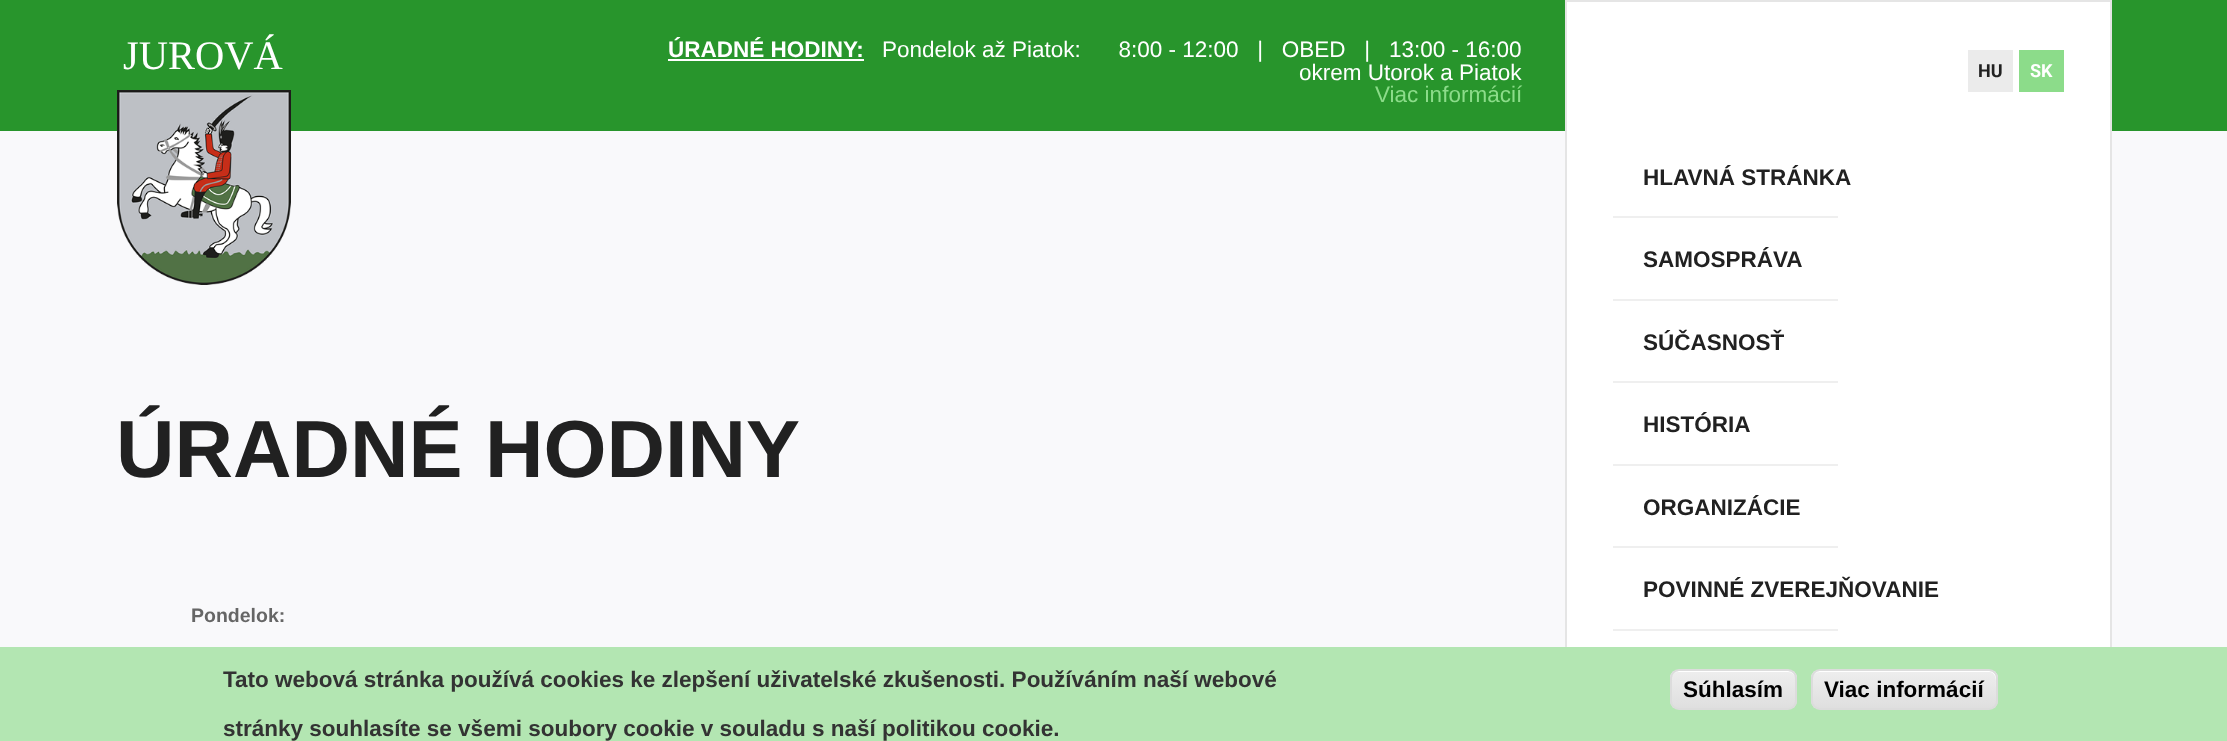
<?xml version="1.0" encoding="UTF-8"?>
<svg xmlns="http://www.w3.org/2000/svg" width="2227" height="741">
    <defs>
        <clipPath id="clip1"><rect x="1670" y="669" width="127" height="41" rx="9"/></clipPath>
        <linearGradient id="g1" gradientUnits="userSpaceOnUse" x1="1733" y1="671" x2="1733" y2="708"><stop offset="0.05" stop-color="#EDEDED"/><stop offset="1" stop-color="#DFDFDF"/></linearGradient>
        <clipPath id="clip2"><rect x="1811" y="669" width="187" height="41" rx="9"/></clipPath>
        <linearGradient id="g2" gradientUnits="userSpaceOnUse" x1="1904" y1="671" x2="1904" y2="708"><stop offset="0.05" stop-color="#EDEDED"/><stop offset="1" stop-color="#DFDFDF"/></linearGradient>
    </defs>
    <rect width="100%" height="100%" fill="#F9F9FB"/>
    <rect x="0" y="0" width="2227" height="131" fill="#28952C"/>
    <text x="123" y="69" font-family="Liberation Serif" font-size="40.5" fill="#FFFFFF">JUROVÁ</text>
    <image x="117" y="90" width="174" height="195" href="img_01.png"/>
    <text x="668" y="57" font-family="Liberation Sans" font-size="22.5" font-weight="700" fill="#FFFFFF">ÚRADNÉ HODINY:</text>
    <rect x="668" y="59" width="196" height="2" fill="#FFFFFF"/>
    <text x="882" y="57" font-family="Liberation Sans" font-size="22.5" fill="#FFFFFF" xml:space="preserve">Pondelok až Piatok:      8:00 - 12:00   |   OBED   |   13:00 - 16:00</text>
    <text x="1299" y="80" font-family="Liberation Sans" font-size="22.5" fill="#FFFFFF">okrem Utorok a Piatok</text>
    <text x="1375" y="102" font-family="Liberation Sans" font-size="22.5" fill="#8CDC8A">Viac informácií</text>
    <text x="116" y="477" font-family="Liberation Sans" font-size="81" font-weight="700" fill="#212121">ÚRADNÉ HODINY</text>
    <text x="191" y="622" font-family="Liberation Sans" font-size="19.5" font-weight="700" fill="#666666">Pondelok:</text>
    <rect x="1567" y="2" width="543" height="645" fill="#FFFFFF"/>
    <rect x="1566" y="1" width="545" height="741" fill="none" stroke="#E5E5E5" stroke-width="2"/>
    <rect x="1968" y="50" width="45" height="42" fill="#EBEBEB"/>
    <text x="1978" y="77" font-family="Roboto" font-size="18" font-weight="700" fill="#212121">HU</text>
    <rect x="2019" y="50" width="45" height="42" fill="#8CDC8A"/>
    <text x="2030" y="77" font-family="Roboto" font-size="18" font-weight="700" fill="#FFFFFF">SK</text>
    <text x="1643" y="185" font-family="Liberation Sans" font-size="22.5" font-weight="700" fill="#212121">HLAVNÁ STRÁNKA</text>
    <rect x="1613" y="216" width="225" height="2" fill="#EFEFEF"/>
    <text x="1643" y="267" font-family="Liberation Sans" font-size="22.5" font-weight="700" fill="#212121">SAMOSPRÁVA</text>
    <rect x="1613" y="299" width="225" height="2" fill="#EFEFEF"/>
    <text x="1643" y="350" font-family="Liberation Sans" font-size="22.5" font-weight="700" fill="#212121">SÚČASNOSŤ</text>
    <rect x="1613" y="381" width="225" height="2" fill="#EFEFEF"/>
    <text x="1643" y="432" font-family="Liberation Sans" font-size="22.5" font-weight="700" fill="#212121">HISTÓRIA</text>
    <rect x="1613" y="464" width="225" height="2" fill="#EFEFEF"/>
    <text x="1643" y="515" font-family="Liberation Sans" font-size="22.5" font-weight="700" fill="#212121">ORGANIZÁCIE</text>
    <rect x="1613" y="546" width="225" height="2" fill="#EFEFEF"/>
    <text x="1643" y="597" font-family="Liberation Sans" font-size="22.5" font-weight="700" fill="#212121">POVINNÉ ZVEREJŇOVANIE</text>
    <rect x="1613" y="629" width="225" height="2" fill="#EFEFEF"/>
    <rect x="0" y="647" width="2227" height="94" fill="#B3E6B2"/>
    <text x="223" y="687" font-family="Liberation Sans" font-size="22.5" font-weight="700" fill="#333333">Tato webová stránka používá cookies ke zlepšení uživatelské zkušenosti. Používáním naší webové</text>
    <text x="223" y="736" font-family="Liberation Sans" font-size="22.5" font-weight="700" fill="#333333">stránky souhlasíte se všemi soubory cookie v souladu s naší politikou cookie.</text>
    <g clip-path="url(#clip1)">
        <rect x="1670" y="671" width="127" height="37" fill="url(#g1)"/>
    </g>
    <path d="M 1678 672 H 1788 C 1792 672 1796 675 1796 680 C 1796 667 1778 671 1770 671 H 1697 C 1689 671 1671 667 1671 680 C 1671 675 1674 672 1678 672 Z" fill="#FFFFFF"/>
    <rect x="1671" y="670" width="125" height="39" rx="8" fill="none" stroke="#DCDCDC" stroke-width="2"/>
    <text x="1683" y="697" font-family="Liberation Sans" font-size="22.5" font-weight="700" fill="#000000">Súhlasím</text>
    <g clip-path="url(#clip2)">
        <rect x="1811" y="671" width="187" height="37" fill="url(#g2)"/>
    </g>
    <path d="M 1820 672 H 1989 C 1997 672 1996 682 1996 687 V 704 C 1996 703 1997 702 1997 700 V 679 C 1997 675 1993 671 1989 671 H 1820 C 1816 671 1812 675 1812 679 V 680 C 1812 675 1815 672 1820 672 Z" fill="#FFFFFF"/>
    <rect x="1812" y="670" width="185" height="39" rx="8" fill="none" stroke="#DCDCDC" stroke-width="2"/>
    <text x="1824" y="697" font-family="Liberation Sans" font-size="22.5" font-weight="700" fill="#000000">Viac informácií</text>
</svg>
